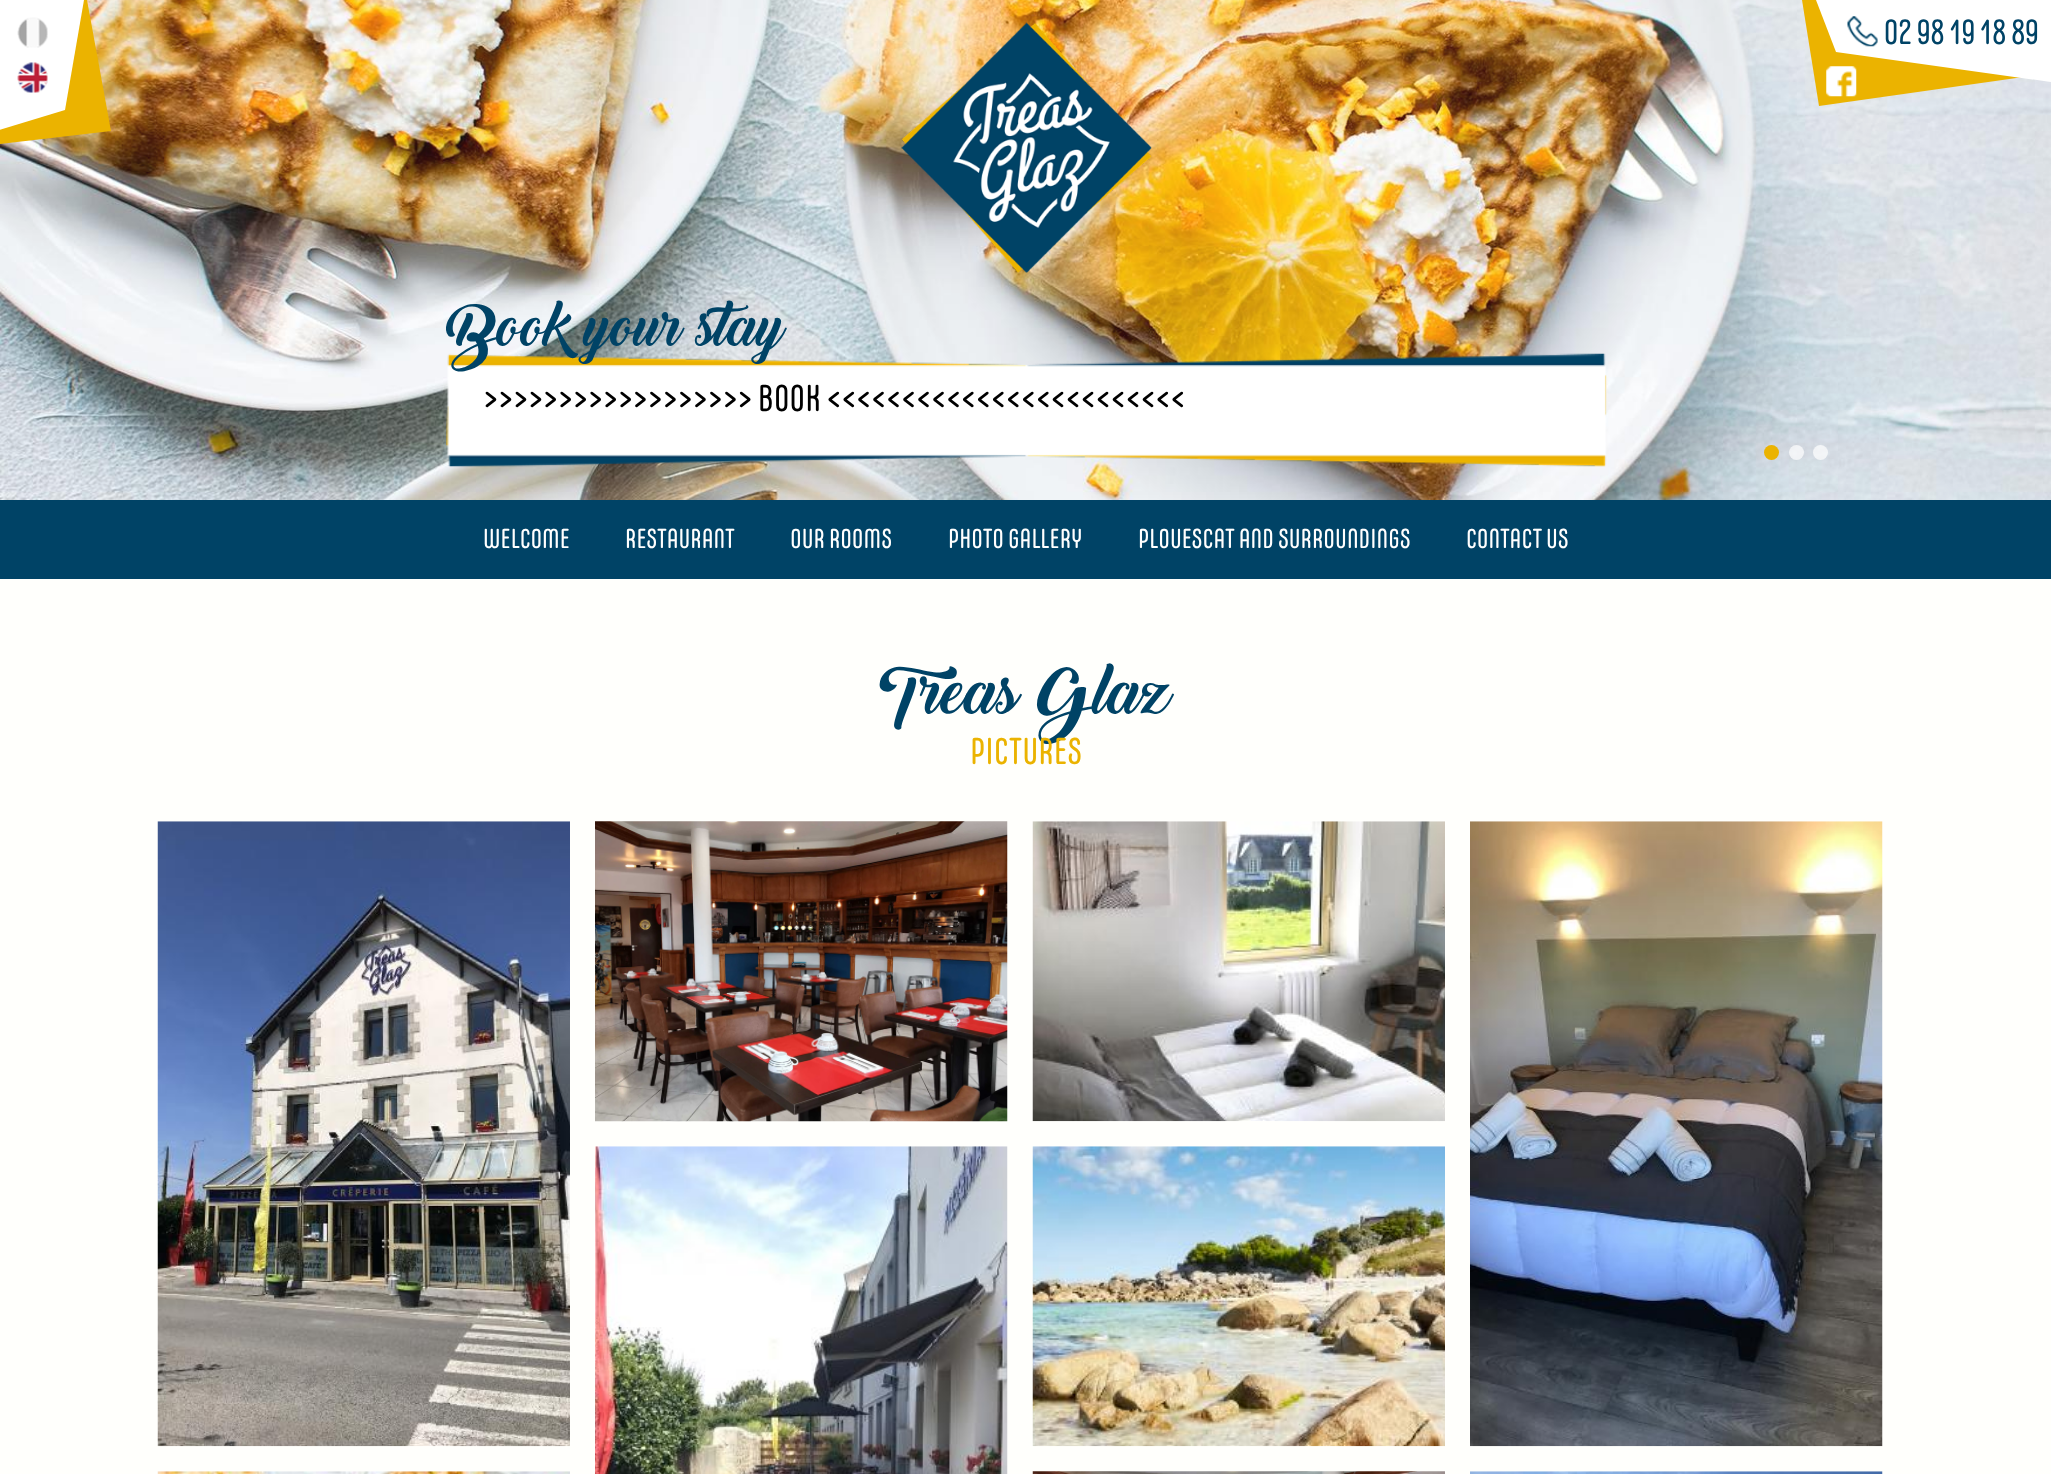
<?xml version="1.0" encoding="UTF-8"?>
<svg xmlns="http://www.w3.org/2000/svg" width="2051" height="1474">
    <rect width="100%" height="100%" fill="#FFFFFC"/>
    <image x="0" y="0" width="2051" height="500" href="img_01.png"/>
    <circle cx="1771.5" cy="452.5" r="7.5" fill="#EBB300"/>
    <circle cx="1796.5" cy="452.5" r="7.5" fill="#FFFFFF" fill-opacity="0.7"/>
    <circle cx="1820.5" cy="452.5" r="7.5" fill="#FFFFFF" fill-opacity="0.7"/>
    <image x="901" y="22" width="251" height="251" href="img_02.png"/>
    <path d="M 0 144 L 111 131 L 87 0 H 0 Z" fill="#EBB300"/>
    <path d="M -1 0 H 84 L 65 110 L -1 130 Z" fill="#FFFFFF"/>
    <image x="17" y="17" width="31" height="31" href="img_03.png"/>
    <image x="17" y="62" width="31" height="31" href="img_04.png"/>
    <path d="M 1802 0 L 1819 106 L 2038 75 L 1981 12 L 1969 0 Z" fill="#EBB300"/>
    <path d="M 1816 0 H 2051 V 82 L 1836 52 Z" fill="#FFFFFF"/>
    <image x="1847" y="16" width="31" height="31" href="img_05.png"/>
    <text x="1884" y="44" font-family="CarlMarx" font-size="35" fill="#004366">02 98 19 18 89</text>
    <image x="1826" y="66" width="31" height="31" href="img_06.png"/>
    <image x="446" y="353" width="1161" height="114" href="img_07.png"/>
    <text x="446" y="346" font-family="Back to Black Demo" font-size="56.25" font-weight="900" fill="#004366">Book your stay</text>
    <text x="483" y="411" font-family="CarlMarx" font-size="37.5" fill="#000000">&gt;&gt;&gt;&gt;&gt;&gt;&gt;&gt;&gt;&gt;&gt;&gt;&gt;&gt;&gt;&gt;&gt;&gt; BOOK &lt;&lt;&lt;&lt;&lt;&lt;&lt;&lt;&lt;&lt;&lt;&lt;&lt;&lt;&lt;&lt;&lt;&lt;&lt;&lt;&lt;&lt;&lt;&lt;</text>
    <rect x="0" y="500" width="2051" height="79" fill="#004366"/>
    <text x="483" y="548" font-family="CarlMarx" font-size="27.5" fill="#FFFFFF">WELCOME</text>
    <text x="625" y="548" font-family="CarlMarx" font-size="27.5" fill="#FFFFFF">RESTAURANT</text>
    <text x="790" y="548" font-family="CarlMarx" font-size="27.5" fill="#FFFFFF">OUR ROOMS</text>
    <text x="948" y="548" font-family="CarlMarx" font-size="27.5" fill="#FFFFFF">PHOTO GALLERY</text>
    <text x="1138" y="548" font-family="CarlMarx" font-size="27.5" fill="#FFFFFF">PLOUESCAT AND SURROUNDINGS</text>
    <text x="1466" y="548" font-family="CarlMarx" font-size="27.5" fill="#FFFFFF">CONTACT US</text>
    <text x="880" y="714" font-family="Back to Black Demo" font-size="62.5" font-weight="900" fill="#004366">Treas Glaz</text>
    <text x="970" y="764" font-family="CarlMarx" font-size="37.5" fill="#EBB300">PICTURES</text>
    <image x="157" y="821" width="413" height="626" href="img_08.png"/>
    <image x="595" y="821" width="413" height="301" href="img_09.png"/>
    <image x="1032" y="821" width="413" height="301" href="img_10.png"/>
    <image x="1470" y="821" width="413" height="626" href="img_11.png"/>
    <image x="595" y="1146" width="413" height="328" href="img_12.png"/>
    <image x="1032" y="1146" width="413" height="301" href="img_13.png"/>
    <image x="157" y="1471" width="413" height="3" href="img_14.png"/>
    <image x="1032" y="1471" width="413" height="3" href="img_15.png"/>
    <image x="1470" y="1471" width="413" height="3" href="img_16.png"/>
</svg>
